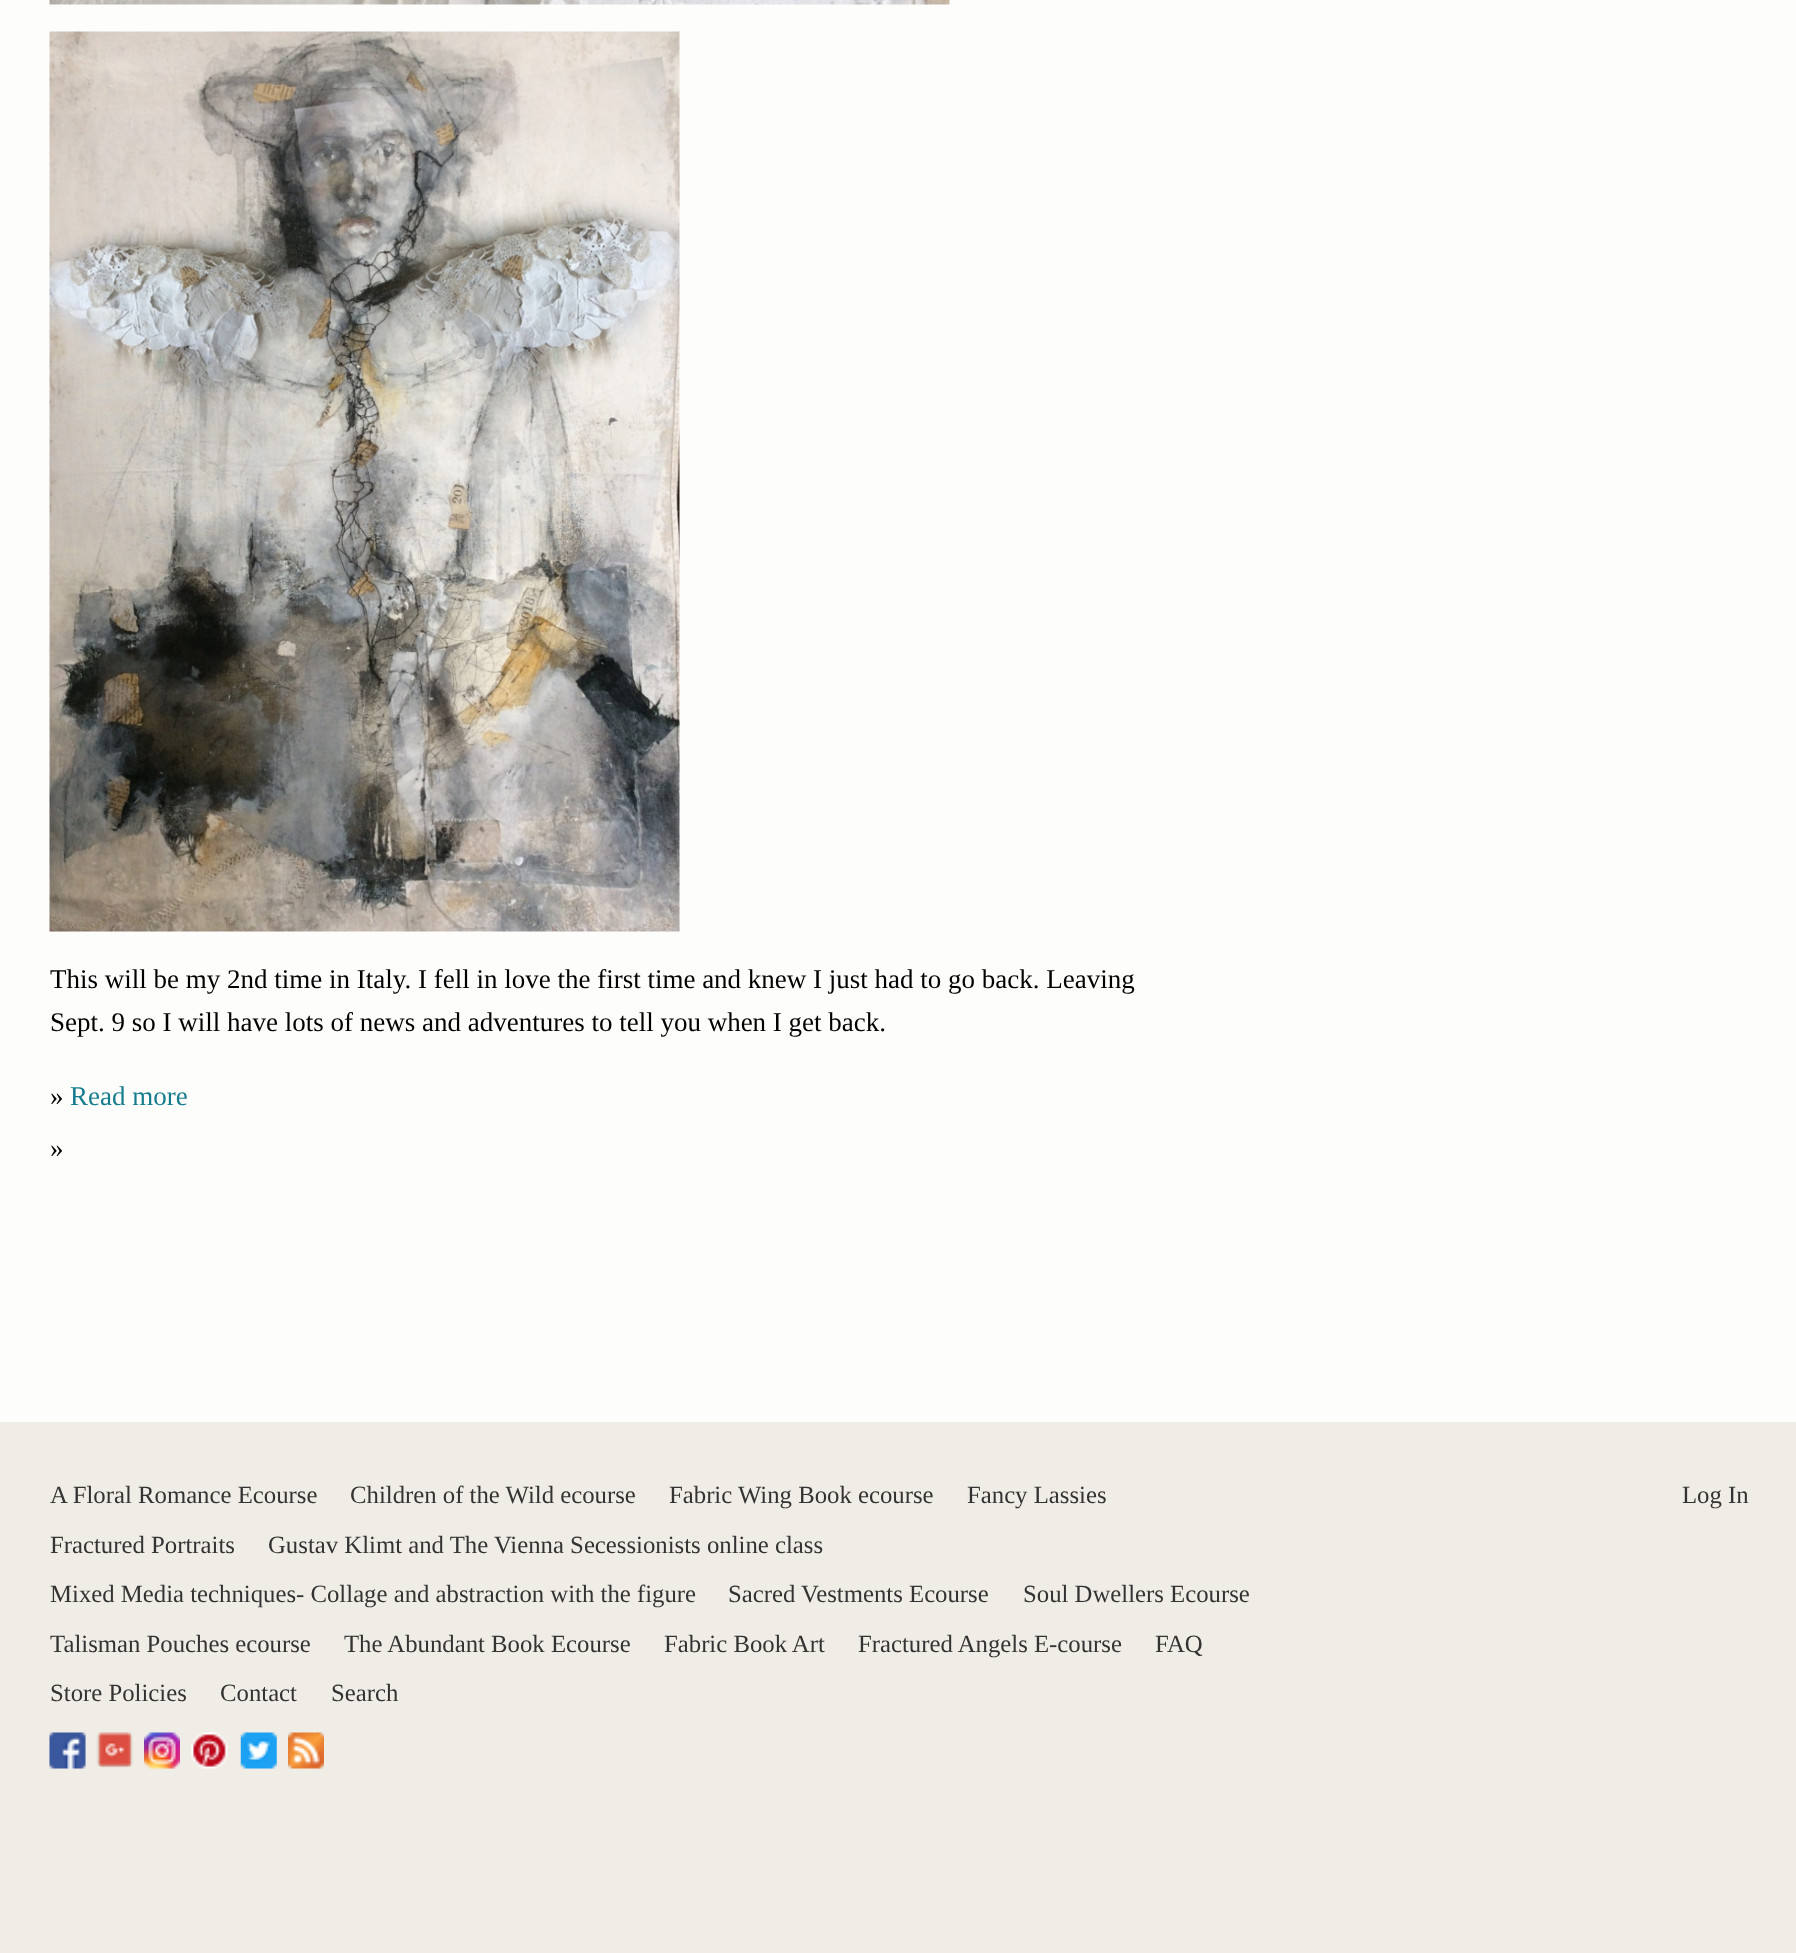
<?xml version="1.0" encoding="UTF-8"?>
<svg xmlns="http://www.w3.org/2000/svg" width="1796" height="1953">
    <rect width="100%" height="100%" fill="#EFEDE6"/>
    <rect x="0" y="0" width="1796" height="1422" fill="#FDFDFC"/>
    <image x="49" y="0" width="901" height="5" href="img_01.png"/>
    <image x="49" y="31" width="631" height="901" href="img_02.png"/>
    <text font-family="Liberation Serif" font-size="27" fill="#000000">
        <tspan x="50" y="988">This will be my 2nd time in Italy. I fell in love the first time and knew I just had to go back. Leaving</tspan>
        <tspan x="50" y="1031">Sept. 9 so I will have lots of news and adventures to tell you when I get back.</tspan>
    </text>
    <text x="50" y="1105" font-family="Liberation Serif" font-size="27" fill="#000000">»</text>
    <text x="70" y="1105" font-family="Liberation Serif" font-size="27" fill="#157C8E">Read more</text>
    <text x="50" y="1157" font-family="Liberation Serif" font-size="27" fill="#000000">»</text>
    <text x="50" y="1503" font-family="Liberation Serif" font-size="24.75" fill="#333333">A Floral Romance Ecourse</text>
    <text x="350" y="1503" font-family="Liberation Serif" font-size="24.75" fill="#333333">Children of the Wild ecourse</text>
    <text x="669" y="1503" font-family="Liberation Serif" font-size="24.75" fill="#333333">Fabric Wing Book ecourse</text>
    <text x="967" y="1503" font-family="Liberation Serif" font-size="24.75" fill="#333333">Fancy Lassies</text>
    <text x="50" y="1553" font-family="Liberation Serif" font-size="24.75" fill="#333333">Fractured Portraits</text>
    <text x="268" y="1553" font-family="Liberation Serif" font-size="24.75" fill="#333333">Gustav Klimt and The Vienna Secessionists online class</text>
    <text x="50" y="1602" font-family="Liberation Serif" font-size="24.75" fill="#333333">Mixed Media techniques- Collage and abstraction with the figure</text>
    <text x="728" y="1602" font-family="Liberation Serif" font-size="24.75" fill="#333333">Sacred Vestments Ecourse</text>
    <text x="1023" y="1602" font-family="Liberation Serif" font-size="24.75" fill="#333333">Soul Dwellers Ecourse</text>
    <text x="50" y="1652" font-family="Liberation Serif" font-size="24.75" fill="#333333">Talisman Pouches ecourse</text>
    <text x="344" y="1652" font-family="Liberation Serif" font-size="24.75" fill="#333333">The Abundant Book Ecourse</text>
    <text x="664" y="1652" font-family="Liberation Serif" font-size="24.75" fill="#333333">Fabric Book Art</text>
    <text x="858" y="1652" font-family="Liberation Serif" font-size="24.75" fill="#333333">Fractured Angels E-course</text>
    <text x="1155" y="1652" font-family="Liberation Serif" font-size="24.75" fill="#333333">FAQ</text>
    <text x="50" y="1701" font-family="Liberation Serif" font-size="24.75" fill="#333333">Store Policies</text>
    <text x="220" y="1701" font-family="Liberation Serif" font-size="24.75" fill="#333333">Contact</text>
    <text x="331" y="1701" font-family="Liberation Serif" font-size="24.75" fill="#333333">Search</text>
    <text x="1682" y="1503" font-family="Liberation Serif" font-size="24.75" fill="#333333">Log In</text>
    <image x="49" y="1732" width="37" height="37" href="img_03.png"/>
    <image x="96" y="1732" width="37" height="36" href="img_04.png"/>
    <image x="144" y="1732" width="36" height="37" href="img_05.png"/>
    <image x="191" y="1732" width="37" height="37" href="img_06.png"/>
    <image x="240" y="1732" width="37" height="37" href="img_07.png"/>
    <image x="288" y="1732" width="36" height="37" href="img_08.png"/>
</svg>
